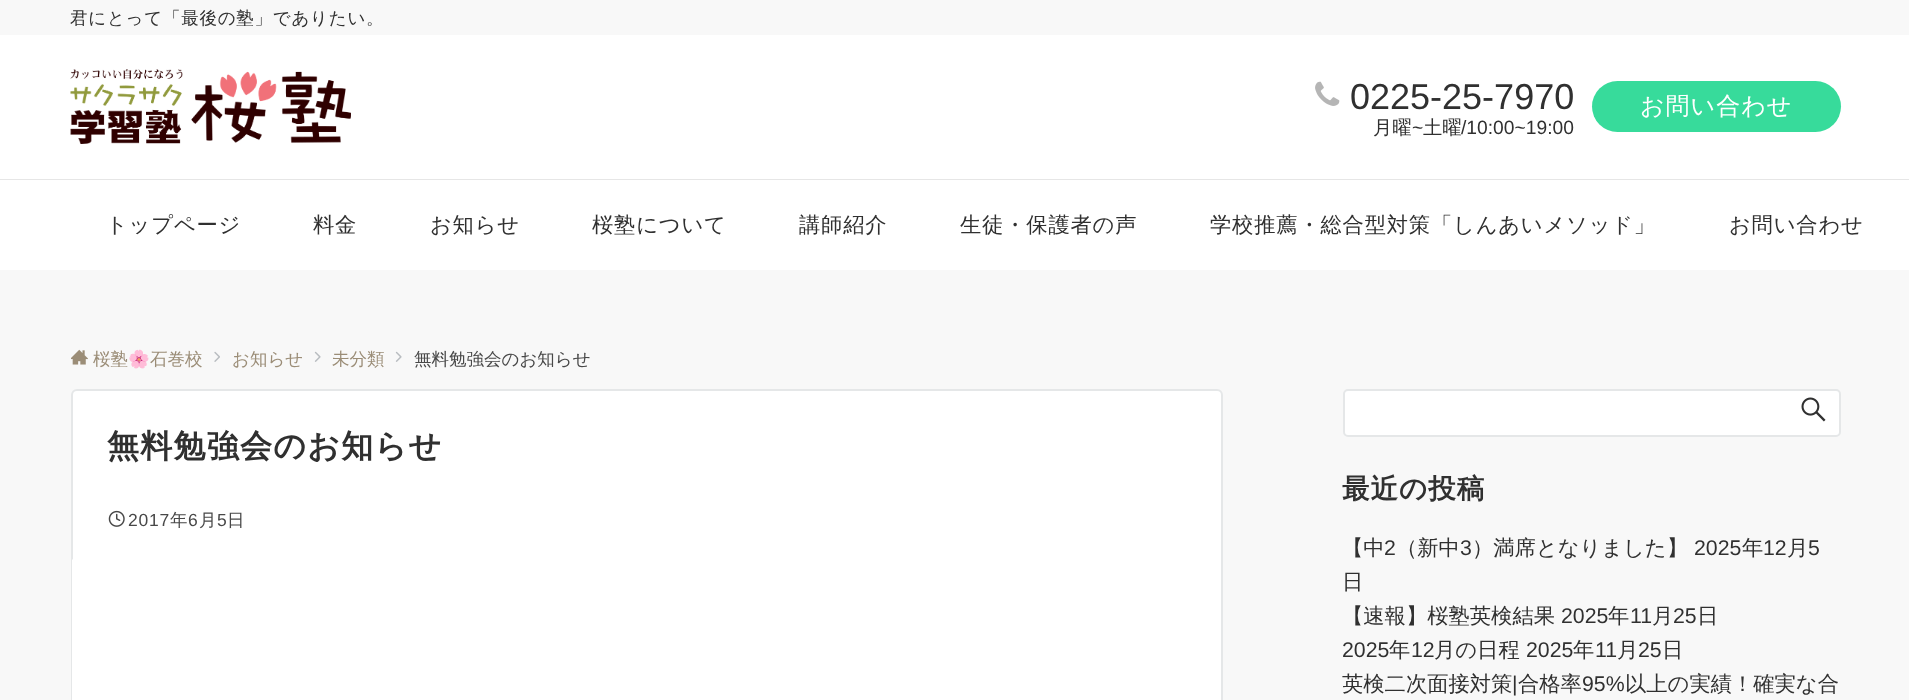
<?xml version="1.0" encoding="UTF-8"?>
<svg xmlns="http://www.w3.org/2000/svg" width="1909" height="700">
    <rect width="100%" height="100%" fill="#F8F8F8"/>
    <text x="70" y="24" font-family="WenQuanYi Zen Hei" font-size="17.5" font-weight="500" letter-spacing="0.75" fill="#303030">君にとって「最後の塾」でありたい。</text>
    <rect x="0" y="35" width="1909" height="144" fill="#FFFFFF"/>
    <rect x="0" y="179" width="1909" height="1" fill="#E6E6E6"/>
    <image x="70" y="69" width="281" height="75" href="img_01.png"/>
    <image x="1315" y="81" width="25" height="25" href="img_02.png"/>
    <text x="1350" y="109" font-family="Liberation Sans" font-size="36" fill="#303030">0225-25-7970</text>
    <text x="1373" y="134" font-family="WenQuanYi Zen Hei" font-size="19.25" font-weight="500" fill="#303030">月曜</text>
    <text x="1412" y="134" font-family="Liberation Sans" font-size="19.25" fill="#303030">~</text>
    <text x="1423" y="134" font-family="WenQuanYi Zen Hei" font-size="19.25" font-weight="500" fill="#303030">土曜</text>
    <text x="1461" y="134" font-family="Liberation Sans" font-size="19.25" fill="#303030">/10:00~19:00</text>
    <rect x="1592" y="81" width="249" height="51" rx="25.5" fill="#37DB9B"/>
    <text x="1640" y="114" font-family="WenQuanYi Zen Hei" font-size="24" font-weight="500" letter-spacing="1" fill="#FFFFFF">お問い合わせ</text>
    <rect x="0" y="180" width="1909" height="90" fill="#FFFFFF"/>
    <text x="106" y="232" font-family="WenQuanYi Zen Hei" font-size="21.3" font-weight="500" letter-spacing="0.8" fill="#303030">トップページ</text>
    <text x="313" y="232" font-family="WenQuanYi Zen Hei" font-size="21.3" font-weight="500" letter-spacing="0.8" fill="#303030">料金</text>
    <text x="430" y="232" font-family="WenQuanYi Zen Hei" font-size="21.3" font-weight="500" letter-spacing="0.8" fill="#303030">お知らせ</text>
    <text x="592" y="232" font-family="WenQuanYi Zen Hei" font-size="21.3" font-weight="500" letter-spacing="0.8" fill="#303030">桜塾について</text>
    <text x="799" y="232" font-family="WenQuanYi Zen Hei" font-size="21.3" font-weight="500" letter-spacing="0.8" fill="#303030">講師紹介</text>
    <text x="960" y="232" font-family="WenQuanYi Zen Hei" font-size="21.3" font-weight="500" letter-spacing="0.8" fill="#303030">生徒・保護者の声</text>
    <text x="1210" y="232" font-family="WenQuanYi Zen Hei" font-size="21.3" font-weight="500" letter-spacing="0.8" fill="#303030">学校推薦・総合型対策「しんあいメソッド」</text>
    <text x="1729" y="232" font-family="WenQuanYi Zen Hei" font-size="21.3" font-weight="500" letter-spacing="0.8" fill="#303030">お問い合わせ</text>
    <image x="71" y="349" width="17" height="16" href="img_03.png"/>
    <text x="93" y="365" font-family="WenQuanYi Zen Hei" font-size="17.5" font-weight="500" fill="#9B8D77">桜塾</text>
    <text x="128" y="365" font-family="Noto Color Emoji" font-size="17.5" fill="#9B8D77">🌸</text>
    <text x="150" y="365" font-family="WenQuanYi Zen Hei" font-size="17.5" font-weight="500" fill="#9B8D77">石巻校</text>
    <image x="214" y="351" width="6" height="11" href="img_04.png"/>
    <text x="232" y="365" font-family="WenQuanYi Zen Hei" font-size="17.5" font-weight="500" fill="#9B8D77">お知らせ</text>
    <image x="314" y="351" width="7" height="11" href="img_05.png"/>
    <text x="332" y="365" font-family="WenQuanYi Zen Hei" font-size="17.5" font-weight="500" fill="#9B8D77">未分類</text>
    <image x="395" y="351" width="7" height="11" href="img_05.png"/>
    <text x="414" y="365" font-family="WenQuanYi Zen Hei" font-size="17.5" font-weight="500" fill="#484848">無料勉強会のお知らせ</text>
    <rect x="72" y="390" width="1150" height="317" rx="5" fill="#FFFFFF" stroke="#E5E7E8" stroke-width="2"/>
    <text x="107" y="457" font-family="WenQuanYi Zen Hei" font-size="32" font-weight="700" letter-spacing="1.25" fill="#303030">無料勉強会のお知らせ</text>
    <image x="108" y="510" width="17" height="17" href="img_06.png"/>
    <text x="128" y="526" font-family="Liberation Sans" font-size="17.5" letter-spacing="0.75" fill="#484848">2017</text>
    <text x="170" y="526" font-family="WenQuanYi Zen Hei" font-size="17.5" font-weight="500" letter-spacing="0.75" fill="#484848">年</text>
    <text x="188" y="526" font-family="Liberation Sans" font-size="17.5" letter-spacing="0.75" fill="#484848">6</text>
    <text x="199" y="526" font-family="WenQuanYi Zen Hei" font-size="17.5" font-weight="500" letter-spacing="0.75" fill="#484848">月</text>
    <text x="217" y="526" font-family="Liberation Sans" font-size="17.5" letter-spacing="0.75" fill="#484848">5</text>
    <text x="227" y="526" font-family="WenQuanYi Zen Hei" font-size="17.5" font-weight="500" letter-spacing="0.75" fill="#484848">日</text>
    <image x="72" y="559" width="1" height="141" href="img_07.png"/>
    <rect x="1344" y="390" width="496" height="46" rx="4" fill="#FFFFFF" stroke="#E5E7E8" stroke-width="2"/>
    <image x="1801" y="397" width="25" height="25" href="img_08.png"/>
    <text x="1342" y="498" font-family="WenQuanYi Zen Hei" font-size="27.5" font-weight="700" letter-spacing="1" fill="#303030">最近の投稿</text>
    <text x="1342" y="555" font-family="WenQuanYi Zen Hei" font-size="21.3" font-weight="500" fill="#303030">【中</text>
    <text x="1384" y="555" font-family="Liberation Sans" font-size="21.3" fill="#303030">2</text>
    <text x="1396" y="555" font-family="WenQuanYi Zen Hei" font-size="21.3" font-weight="500" fill="#303030">（新中</text>
    <text x="1460" y="555" font-family="Liberation Sans" font-size="21.3" fill="#303030">3</text>
    <text x="1472" y="555" font-family="WenQuanYi Zen Hei" font-size="21.3" font-weight="500" fill="#303030">）満席となりました】</text>
    <text x="1694" y="555" font-family="Liberation Sans" font-size="21.3" fill="#303030">2025</text>
    <text x="1742" y="555" font-family="WenQuanYi Zen Hei" font-size="21.3" font-weight="500" fill="#303030">年</text>
    <text x="1763" y="555" font-family="Liberation Sans" font-size="21.3" fill="#303030">12</text>
    <text x="1787" y="555" font-family="WenQuanYi Zen Hei" font-size="21.3" font-weight="500" fill="#303030">月</text>
    <text x="1808" y="555" font-family="Liberation Sans" font-size="21.3" fill="#303030">5</text>
    <text font-family="WenQuanYi Zen Hei" font-size="21.3" font-weight="500" fill="#303030">
        <tspan x="1342" y="589">日</tspan>
        <tspan x="1342" y="623">【速報】桜塾英検結果</tspan>
    </text>
    <text x="1561" y="623" font-family="Liberation Sans" font-size="21.3" fill="#303030">2025</text>
    <text x="1608" y="623" font-family="WenQuanYi Zen Hei" font-size="21.3" font-weight="500" fill="#303030">年</text>
    <text x="1630" y="623" font-family="Liberation Sans" font-size="21.3" fill="#303030">11</text>
    <text x="1652" y="623" font-family="WenQuanYi Zen Hei" font-size="21.3" font-weight="500" fill="#303030">月</text>
    <text x="1673" y="623" font-family="Liberation Sans" font-size="21.3" fill="#303030">25</text>
    <text x="1697" y="623" font-family="WenQuanYi Zen Hei" font-size="21.3" font-weight="500" fill="#303030">日</text>
    <text x="1342" y="657" font-family="Liberation Sans" font-size="21.3" fill="#303030">2025</text>
    <text x="1389" y="657" font-family="WenQuanYi Zen Hei" font-size="21.3" font-weight="500" fill="#303030">年</text>
    <text x="1411" y="657" font-family="Liberation Sans" font-size="21.3" fill="#303030">12</text>
    <text x="1434" y="657" font-family="WenQuanYi Zen Hei" font-size="21.3" font-weight="500" fill="#303030">月の日程</text>
    <text x="1526" y="657" font-family="Liberation Sans" font-size="21.3" fill="#303030">2025</text>
    <text x="1573" y="657" font-family="WenQuanYi Zen Hei" font-size="21.3" font-weight="500" fill="#303030">年</text>
    <text x="1595" y="657" font-family="Liberation Sans" font-size="21.3" fill="#303030">11</text>
    <text x="1617" y="657" font-family="WenQuanYi Zen Hei" font-size="21.3" font-weight="500" fill="#303030">月</text>
    <text x="1638" y="657" font-family="Liberation Sans" font-size="21.3" fill="#303030">25</text>
    <text x="1662" y="657" font-family="WenQuanYi Zen Hei" font-size="21.3" font-weight="500" fill="#303030">日</text>
    <text x="1342" y="691" font-family="WenQuanYi Zen Hei" font-size="21.3" font-weight="500" fill="#303030">英検二次面接対策</text>
    <text x="1512" y="691" font-family="Liberation Sans" font-size="21.3" fill="#303030">|</text>
    <text x="1518" y="691" font-family="WenQuanYi Zen Hei" font-size="21.3" font-weight="500" fill="#303030">合格率</text>
    <text x="1582" y="691" font-family="Liberation Sans" font-size="21.3" fill="#303030">95%</text>
    <text x="1625" y="691" font-family="WenQuanYi Zen Hei" font-size="21.3" font-weight="500" fill="#303030">以上の実績！確実な合</text>
</svg>
